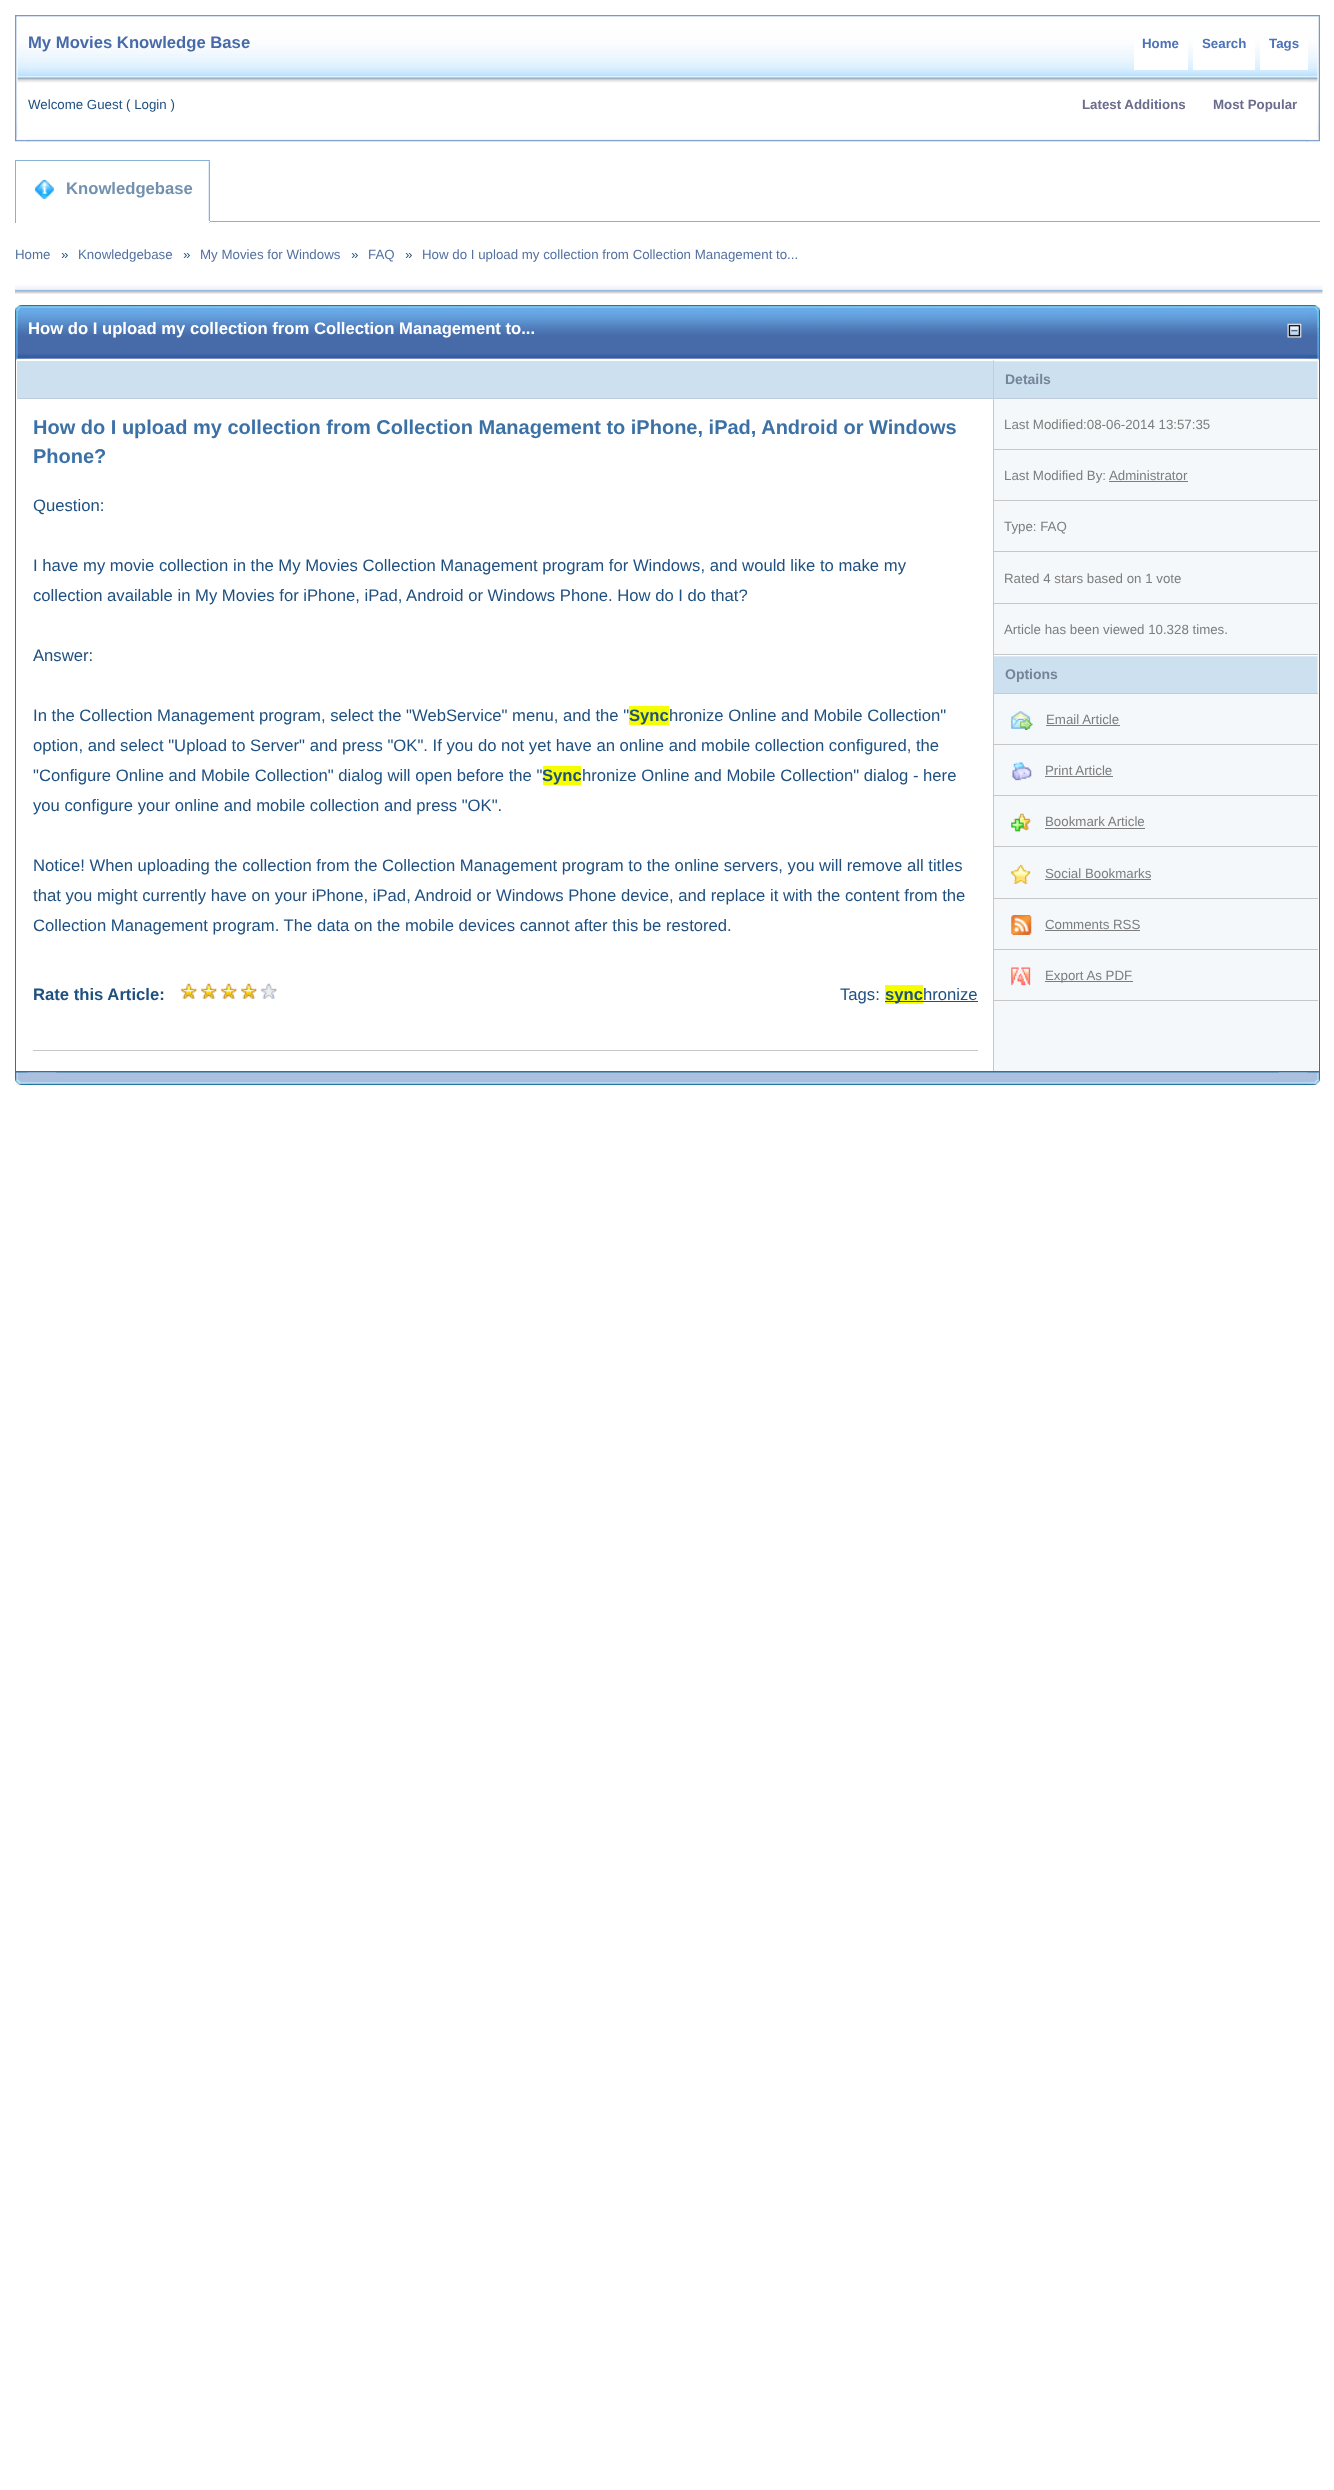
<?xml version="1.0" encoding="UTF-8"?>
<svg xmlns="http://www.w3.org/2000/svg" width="1334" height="2490">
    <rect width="100%" height="100%" fill="#FFFFFF"/>
    <image x="1306" y="15" width="14" height="127" href="img_01.png"/>
    <image x="15" y="15" width="14" height="127" href="img_02.png"/>
    <image x="27" y="15" width="1281" height="127" href="img_03.png"/>
    <text x="28" y="48" font-family="Liberation Sans" font-size="16.67" font-weight="700" fill="#476BA9">My Movies Knowledge Base</text>
    <rect x="1134" y="40" width="54" height="30" fill="#FFFFFF"/>
    <text x="1142" y="48" font-family="Liberation Sans" font-size="13.3" font-weight="700" fill="#4C72B9">Home</text>
    <rect x="1193" y="40" width="62" height="30" fill="#FFFFFF"/>
    <text x="1202" y="48" font-family="Liberation Sans" font-size="13.3" font-weight="700" fill="#4C72B9">Search</text>
    <rect x="1260" y="40" width="48" height="30" fill="#FFFFFF"/>
    <text x="1269" y="48" font-family="Liberation Sans" font-size="13.3" font-weight="700" fill="#4C72B9">Tags</text>
    <text x="28" y="109" font-family="Liberation Sans" font-size="13.3" fill="#1F5080">Welcome Guest ( Login )</text>
    <text x="1082" y="109" font-family="Liberation Sans" font-size="13.3" font-weight="700" fill="#6C6C8E">Latest Additions</text>
    <text x="1213" y="109" font-family="Liberation Sans" font-size="13.3" font-weight="700" fill="#6C6C8E">Most Popular</text>
    <rect x="210" y="221" width="1110" height="1" fill="#89B1D7"/>
    <rect x="15" y="160" width="195" height="1" fill="#89B1D7"/>
    <rect x="15" y="160" width="1" height="63" fill="#89B1D7"/>
    <image x="16" y="161" width="194" height="62" href="img_04.png"/>
    <rect x="208" y="221" width="2" height="1" fill="#FFFFFF"/>
    <image x="34" y="179" width="20" height="20" href="img_05.png"/>
    <text x="66" y="194" font-family="Liberation Sans" font-size="16.67" font-weight="700" fill="#7291AF">Knowledgebase</text>
    <text x="15" y="259" font-family="Liberation Sans" font-size="13.3" fill="#5471A1">Home</text>
    <text x="61" y="259" font-family="Liberation Sans" font-size="13.3" fill="#1F5080">»</text>
    <text x="78" y="259" font-family="Liberation Sans" font-size="13.3" fill="#5471A1">Knowledgebase</text>
    <text x="183" y="259" font-family="Liberation Sans" font-size="13.3" fill="#1F5080">»</text>
    <text x="200" y="259" font-family="Liberation Sans" font-size="13.3" fill="#5471A1">My Movies for Windows</text>
    <text x="351" y="259" font-family="Liberation Sans" font-size="13.3" fill="#1F5080">»</text>
    <text x="368" y="259" font-family="Liberation Sans" font-size="13.3" fill="#5471A1">FAQ</text>
    <text x="405" y="259" font-family="Liberation Sans" font-size="13.3" fill="#1F5080">»</text>
    <text x="422" y="259" font-family="Liberation Sans" font-size="13.3" fill="#5471A1">How do I upload my collection from Collection Management to...</text>
    <image x="15" y="285" width="1308" height="9" href="img_06.png"/>
    <image x="1301" y="305" width="19" height="55" href="img_07.png"/>
    <image x="15" y="305" width="19" height="55" href="img_08.png"/>
    <image x="27" y="305" width="1281" height="54" href="img_09.png"/>
    <text x="28" y="334" font-family="Liberation Sans" font-size="16.67" font-weight="700" fill="#FFFFFF">How do I upload my collection from Collection Management to...</text>
    <image x="1287" y="323" width="15" height="15" href="img_10.png"/>
    <rect x="15" y="360" width="1305" height="713" fill="#3170A3"/>
    <rect x="16" y="360" width="1303" height="711" fill="#FFFFFF"/>
    <rect x="17" y="361" width="976" height="38" fill="#CDE0EF"/>
    <rect x="18" y="398" width="975" height="1" fill="#BECDD9"/>
    <text font-family="Liberation Sans" font-size="20" font-weight="700" fill="#3C71A6">
        <tspan x="33" y="434">How do I upload my collection from Collection Management to iPhone, iPad, Android or Windows</tspan>
        <tspan x="33" y="463">Phone?</tspan>
    </text>
    <text x="33" y="511" font-family="Liberation Sans" font-size="16.67" fill="#1F5080">Question:</text>
    <text font-family="Liberation Sans" font-size="16.67" fill="#1F5080">
        <tspan x="33" y="571">I have my movie collection in the My Movies Collection Management program for Windows, and would like to make my</tspan>
        <tspan x="33" y="601">collection available in My Movies for iPhone, iPad, Android or Windows Phone. How do I do that?</tspan>
    </text>
    <text x="33" y="661" font-family="Liberation Sans" font-size="16.67" fill="#1F5080">Answer:</text>
    <text x="33" y="721" font-family="Liberation Sans" font-size="16.67" fill="#1F5080">In the Collection Management program, select the "WebService" menu, and the "</text>
    <rect x="629" y="706" width="40" height="19" fill="#F6FF00"/>
    <text x="629" y="721" font-family="Liberation Sans" font-size="16.67" font-weight="700" fill="#1F5080">Sync</text>
    <text x="669" y="721" font-family="Liberation Sans" font-size="16.67" fill="#1F5080">hronize Online and Mobile Collection"</text>
    <text font-family="Liberation Sans" font-size="16.67" fill="#1F5080">
        <tspan x="33" y="751">option, and select "Upload to Server" and press "OK". If you do not yet have an online and mobile collection configured, the</tspan>
        <tspan x="33" y="781">"Configure Online and Mobile Collection" dialog will open before the "</tspan>
    </text>
    <rect x="543" y="766" width="38" height="19" fill="#F6FF00"/>
    <text x="542" y="781" font-family="Liberation Sans" font-size="16.67" font-weight="700" fill="#1F5080">Sync</text>
    <text x="582" y="781" font-family="Liberation Sans" font-size="16.67" fill="#1F5080">hronize Online and Mobile Collection" dialog - here</text>
    <text x="33" y="811" font-family="Liberation Sans" font-size="16.67" fill="#1F5080">you configure your online and mobile collection and press "OK".</text>
    <text font-family="Liberation Sans" font-size="16.67" fill="#1F5080">
        <tspan x="33" y="871">Notice! When uploading the collection from the Collection Management program to the online servers, you will remove all titles</tspan>
        <tspan x="33" y="901">that you might currently have on your iPhone, iPad, Android or Windows Phone device, and replace it with the content from the</tspan>
        <tspan x="33" y="931">Collection Management program. The data on the mobile devices cannot after this be restored.</tspan>
    </text>
    <text x="33" y="1000" font-family="Liberation Sans" font-size="16.67" font-weight="700" fill="#1F5080">Rate this Article:</text>
    <image x="181" y="983" width="16" height="16" href="img_11.png"/>
    <image x="201" y="983" width="16" height="16" href="img_11.png"/>
    <image x="221" y="983" width="16" height="16" href="img_11.png"/>
    <image x="241" y="983" width="16" height="16" href="img_11.png"/>
    <image x="261" y="983" width="16" height="16" href="img_12.png"/>
    <text x="840" y="1000" font-family="Liberation Sans" font-size="16.67" fill="#1F5080">Tags:</text>
    <rect x="885" y="985" width="38" height="19" fill="#F6FF00"/>
    <rect x="885" y="1001" width="93" height="1" fill="#1F5080"/>
    <text x="885" y="1000" font-family="Liberation Sans" font-size="16.67" font-weight="700" fill="#1F5080">sync</text>
    <text x="923" y="1000" font-family="Liberation Sans" font-size="16.67" fill="#1F5080">hronize</text>
    <rect x="33" y="1050" width="945" height="1" fill="#C7C7C7"/>
    <rect x="994" y="360" width="324" height="711" fill="#F4F8FB"/>
    <rect x="993" y="360" width="1" height="711" fill="#C7C7C7"/>
    <image x="993" y="360" width="325" height="39" href="img_13.png"/>
    <rect x="994" y="398" width="324" height="1" fill="#BECDD9"/>
    <text x="1005" y="384" font-family="Liberation Sans" font-size="14" font-weight="700" fill="#758499">Details</text>
    <rect x="994" y="449" width="324" height="1" fill="#C7C7C7"/>
    <text x="1004" y="429" font-family="Liberation Sans" font-size="13.3" fill="#7D7D7D">Last Modified:08-06-2014 13:57:35</text>
    <rect x="994" y="500" width="324" height="1" fill="#C7C7C7"/>
    <text x="1004" y="480" font-family="Liberation Sans" font-size="13.3" fill="#7D7D7D">Last Modified By:</text>
    <text x="1109" y="480" font-family="Liberation Sans" font-size="13.3" fill="#7D7D7D">Administrator</text>
    <rect x="1109" y="481" width="79" height="1" fill="#7D7D7D"/>
    <rect x="994" y="551" width="324" height="1" fill="#C7C7C7"/>
    <text x="1004" y="531" font-family="Liberation Sans" font-size="13.3" fill="#7D7D7D">Type: FAQ</text>
    <rect x="994" y="603" width="324" height="1" fill="#C7C7C7"/>
    <text x="1004" y="583" font-family="Liberation Sans" font-size="13.3" fill="#7D7D7D">Rated 4 stars based on 1 vote</text>
    <rect x="994" y="654" width="324" height="1" fill="#C7C7C7"/>
    <text x="1004" y="634" font-family="Liberation Sans" font-size="13.3" fill="#7D7D7D">Article has been viewed 10.328 times.</text>
    <image x="993" y="655" width="325" height="39" href="img_13.png"/>
    <rect x="994" y="693" width="324" height="1" fill="#BECDD9"/>
    <text x="1005" y="679" font-family="Liberation Sans" font-size="14" font-weight="700" fill="#758499">Options</text>
    <rect x="994" y="744" width="324" height="1" fill="#C7C7C7"/>
    <image x="1011" y="711" width="22" height="19" href="img_14.png"/>
    <text x="1046" y="724" font-family="Liberation Sans" font-size="13.3" fill="#7D7D7D">Email Article</text>
    <rect x="1046" y="725" width="74" height="1" fill="#7D7D7D"/>
    <rect x="994" y="795" width="324" height="1" fill="#C7C7C7"/>
    <image x="1012" y="762" width="20" height="19" href="img_15.png"/>
    <text x="1045" y="775" font-family="Liberation Sans" font-size="13.3" fill="#7D7D7D">Print Article</text>
    <rect x="1045" y="776" width="68" height="1" fill="#7D7D7D"/>
    <rect x="994" y="846" width="324" height="1" fill="#C7C7C7"/>
    <image x="1011" y="813" width="21" height="19" href="img_16.png"/>
    <text x="1045" y="826" font-family="Liberation Sans" font-size="13.3" fill="#7D7D7D">Bookmark Article</text>
    <rect x="1045" y="828" width="100" height="1" fill="#7D7D7D"/>
    <rect x="994" y="898" width="324" height="1" fill="#C7C7C7"/>
    <image x="1011" y="864" width="20" height="20" href="img_17.png"/>
    <text x="1045" y="878" font-family="Liberation Sans" font-size="13.3" fill="#7D7D7D">Social Bookmarks</text>
    <rect x="1045" y="879" width="106" height="1" fill="#7D7D7D"/>
    <rect x="994" y="949" width="324" height="1" fill="#C7C7C7"/>
    <image x="1011" y="915" width="21" height="20" href="img_18.png"/>
    <text x="1045" y="929" font-family="Liberation Sans" font-size="13.3" fill="#7D7D7D">Comments RSS</text>
    <rect x="1045" y="930" width="95" height="1" fill="#7D7D7D"/>
    <rect x="994" y="1000" width="324" height="1" fill="#C7C7C7"/>
    <image x="1011" y="967" width="20" height="19" href="img_19.png"/>
    <rect x="1045" y="981" width="88" height="1" fill="#7D7D7D"/>
    <text x="1045" y="980" font-family="Liberation Sans" font-size="13.3" fill="#7D7D7D">Export As PDF</text>
    <image x="1278" y="1072" width="42" height="13" href="img_20.png"/>
    <image x="15" y="1072" width="42" height="13" href="img_21.png"/>
    <image x="27" y="1072" width="1281" height="13" href="img_22.png"/>
</svg>
